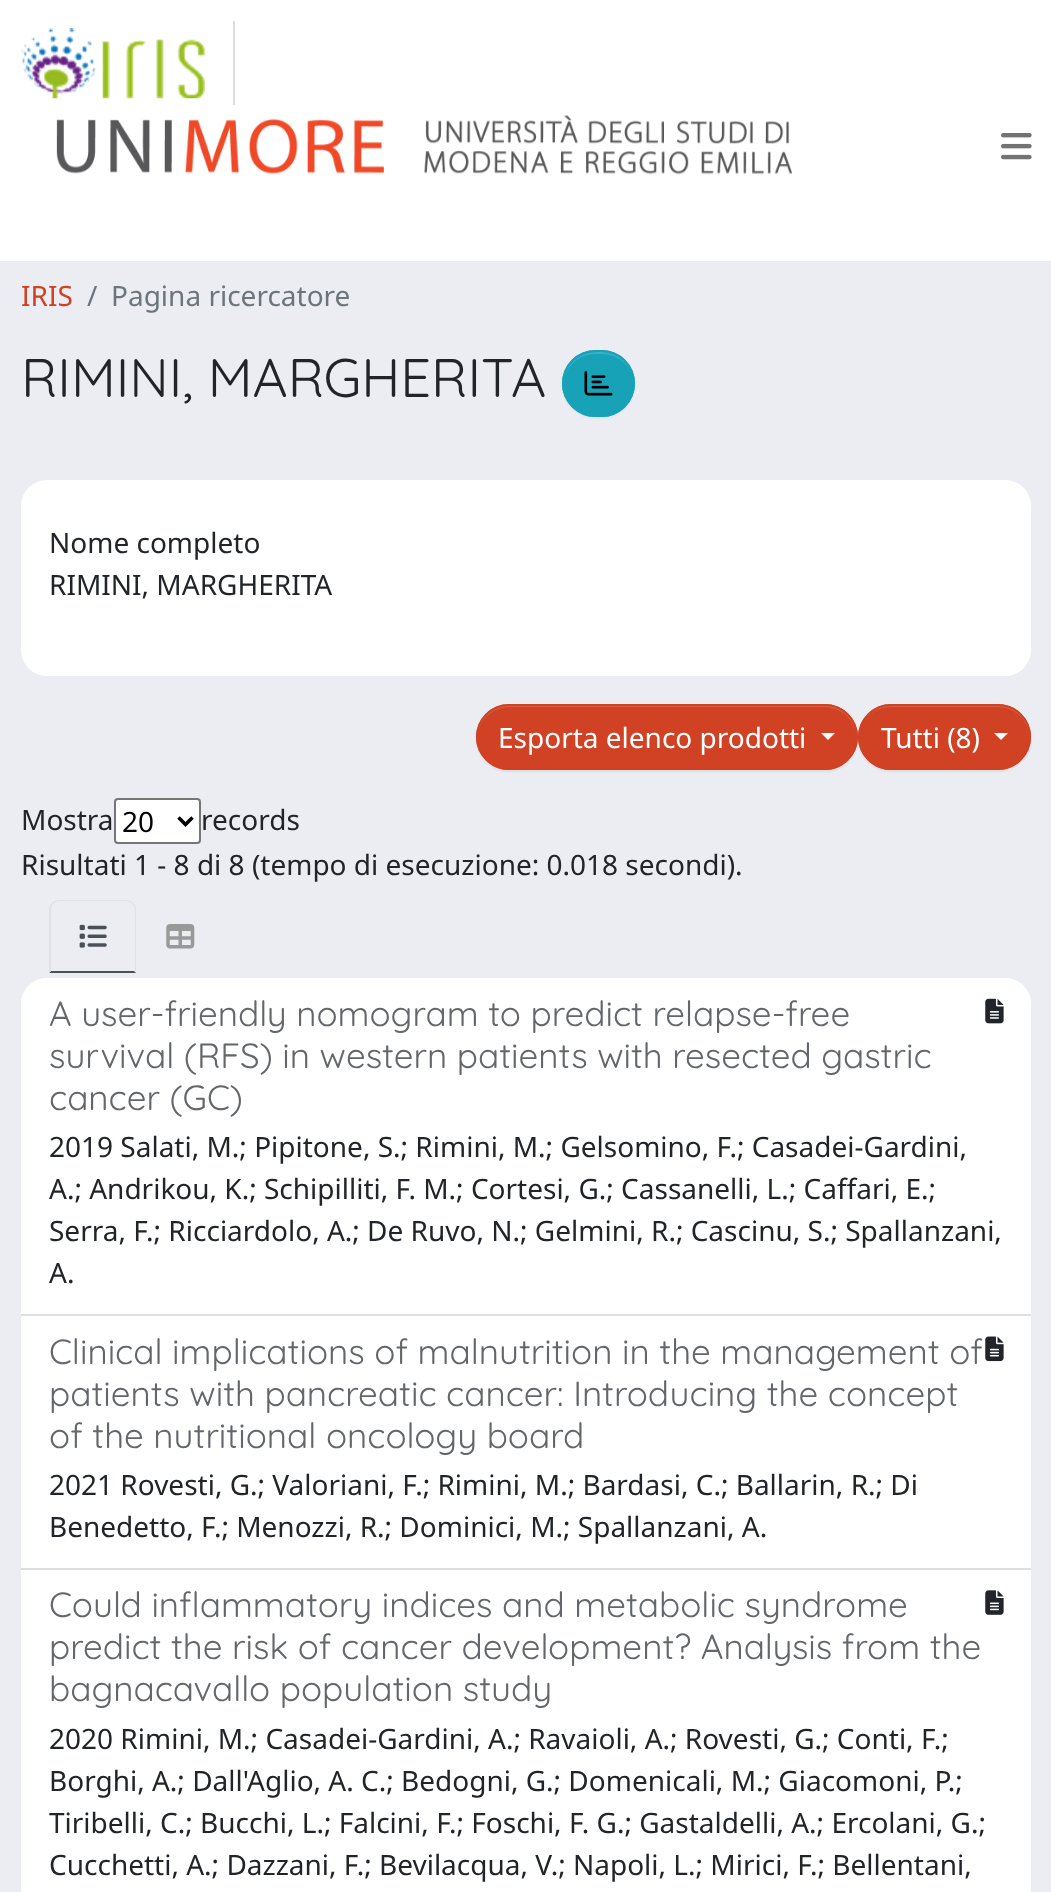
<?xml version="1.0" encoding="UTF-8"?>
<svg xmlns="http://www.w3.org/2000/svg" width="1051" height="1892">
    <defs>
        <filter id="blur1" x="-50%" y="-200%" width="200%" height="500%"><feGaussianBlur stdDeviation="1"/></filter>
    </defs>
    <rect width="100%" height="100%" fill="#ECEDF2"/>
    <rect x="0" y="0" width="1051" height="261" fill="#FFFFFF"/>
    <rect x="233" y="21" width="2" height="84" fill="#DDDDDD"/>
    <image x="21" y="28" width="184" height="71" href="img_01.png"/>
    <image x="56" y="115" width="736" height="60" href="img_02.png"/>
    <image x="1001" y="133" width="31" height="27" href="img_03.png"/>
    <text x="21" y="306" font-family="Noto Sans" font-size="28" fill="#D14124">IRIS</text>
    <text x="87" y="306" font-family="Noto Sans" font-size="28" fill="#6C757D">/</text>
    <text x="111" y="306" font-family="Noto Sans" font-size="28" fill="#6C757D">Pagina ricercatore</text>
    <text x="21" y="397" font-family="Quicksand" font-size="54.25" font-weight="300" fill="#212529">RIMINI, MARGHERITA</text>
    <rect x="562" y="352" width="73" height="66" rx="33" fill="#000000" fill-opacity="0.07" filter="url(#blur1)"/>
    <rect x="562" y="350" width="73" height="67" rx="33.5" fill="#17A2B8"/>
    <path d="M 595 354 H 602 C 619 354 634 368 634 384 C 635 341 563 341 564 384 C 564 368 578 354 595 354 Z" fill="#3AB0C3"/>
    <rect x="563" y="351" width="71" height="65" rx="32.5" fill="none" stroke="#17A2B8" stroke-width="2"/>
    <image x="584" y="371" width="29" height="25" href="img_04.png"/>
    <rect x="21" y="480" width="1010" height="196" rx="26" fill="#FFFFFF"/>
    <text font-family="Noto Sans" font-size="28" fill="#212529">
        <tspan x="49" y="553">Nome completo</tspan>
        <tspan x="49" y="595">RIMINI, MARGHERITA</tspan>
    </text>
    <rect x="858" y="705" width="173" height="67" rx="33.5" fill="#000000" fill-opacity="0.07" filter="url(#blur1)"/>
    <rect x="858" y="704" width="173" height="66" rx="33" fill="#D14124"/>
    <path d="M 891 707 H 998 C 1015 707 1029 721 1029 737 V 736 C 1029 719 1015 705 998 705 H 890 C 873 705 859 719 859 736 V 737 C 859 721 873 707 891 707 Z" fill="#D85E45"/>
    <rect x="859" y="705" width="171" height="64" rx="32" fill="none" stroke="#D14124" stroke-width="2"/>
    <rect x="476" y="705" width="382" height="67" rx="33.5" fill="#000000" fill-opacity="0.07" filter="url(#blur1)"/>
    <rect x="476" y="704" width="382" height="66" rx="33" fill="#D14124"/>
    <path d="M 509 707 H 824 C 842 707 856 721 856 737 V 736 C 856 719 842 705 824 705 H 510 C 492 705 478 719 478 736 V 737 C 478 721 492 707 509 707 Z" fill="#D85E45"/>
    <rect x="477" y="705" width="380" height="64" rx="32" fill="none" stroke="#D14124" stroke-width="2"/>
    <text x="498" y="748" font-family="Noto Sans" font-size="28" fill="#FFFFFF">Esporta elenco prodotti</text>
    <path d="M 821 733 H 835 L 828 740 Z" fill="#FFFFFF"/>
    <text x="881" y="748" font-family="Noto Sans" font-size="28" fill="#FFFFFF">Tutti (8)</text>
    <path d="M 994 733 H 1008 L 1001 740 Z" fill="#FFFFFF"/>
    <text x="21" y="830" font-family="Noto Sans" font-size="28" fill="#212529">Mostra</text>
    <rect x="115" y="799" width="85" height="44" rx="3" fill="#FFFFFF" stroke="#767676" stroke-width="2"/>
    <path d="M 178.5 817.5 L 185.5 824.5 L 192.5 817.5" fill="none" stroke="#000000" stroke-width="3.5"/>
    <text x="122" y="832" font-family="Noto Sans" font-size="28" fill="#000000">20</text>
    <text x="201" y="830" font-family="Noto Sans" font-size="28" fill="#212529">records</text>
    <text x="21" y="875" font-family="Noto Sans" font-size="28" fill="#212529">Risultati 1 - 8 di 8 (tempo di esecuzione: 0.018 secondi).</text>
    <path d="M 60 900 C 57 900 54 901 52 903 L 53 904 C 55 902 57 901 60 901 H 126 C 128 901 131 902 132 904 L 133 903 C 132 901 129 900 126 900 Z" fill="#DEE2E6"/>
    <path d="M 136 972 V 910 C 136 907 135 904 133 903 L 132 904 C 134 905 135 908 135 910 V 971 H 134 Z" fill="#DEE2E6"/>
    <path d="M 136 973 L 134 971 H 51 L 49 973 Z" fill="#495057"/>
    <path d="M 49 973 L 51 971 V 910 C 51 908 52 905 53 904 L 52 903 C 50 904 49 907 49 910 Z" fill="#DEE2E6"/>
    <image x="79" y="924" width="28" height="24" href="img_05.png"/>
    <image x="166" y="924" width="29" height="25" href="img_06.png"/>
    <rect x="21" y="978" width="1010" height="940" rx="26" fill="#FFFFFF"/>
    <path d="M 47 978 H 1005 C 1019.5 978 1031 989.5 1031 1004 V 1316 H 21 V 1004 C 21 989.5 32.5 978 47 978 Z" fill="#FFFFFF"/>
    <rect x="21" y="1314" width="1010" height="2" fill="#DFDFDF"/>
    <text font-family="Quicksand" font-size="35" font-weight="300" fill="#63666A">
        <tspan x="49" y="1026">A user-friendly nomogram to predict relapse-free</tspan>
        <tspan x="49" y="1068">survival (RFS) in western patients with resected gastric</tspan>
        <tspan x="49" y="1110">cancer (GC)</tspan>
    </text>
    <image x="985" y="998" width="19" height="26" href="img_07.png"/>
    <text font-family="Noto Sans" font-size="28" fill="#212529">
        <tspan x="49" y="1157">2019 Salati, M.; Pipitone, S.; Rimini, M.; Gelsomino, F.; Casadei-Gardini,</tspan>
        <tspan x="49" y="1199">A.; Andrikou, K.; Schipilliti, F. M.; Cortesi, G.; Cassanelli, L.; Caffari, E.;</tspan>
        <tspan x="49" y="1241">Serra, F.; Ricciardolo, A.; De Ruvo, N.; Gelmini, R.; Cascinu, S.; Spallanzani,</tspan>
        <tspan x="49" y="1283">A.</tspan>
    </text>
    <rect x="21" y="1568" width="1010" height="2" fill="#DFDFDF"/>
    <text font-family="Quicksand" font-size="35" font-weight="300" fill="#63666A">
        <tspan x="49" y="1364">Clinical implications of malnutrition in the management of</tspan>
        <tspan x="49" y="1406">patients with pancreatic cancer: Introducing the concept</tspan>
        <tspan x="49" y="1448">of the nutritional oncology board</tspan>
    </text>
    <image x="985" y="1336" width="19" height="26" href="img_08.png"/>
    <text font-family="Noto Sans" font-size="28" fill="#212529">
        <tspan x="49" y="1495">2021 Rovesti, G.; Valoriani, F.; Rimini, M.; Bardasi, C.; Ballarin, R.; Di</tspan>
        <tspan x="49" y="1537">Benedetto, F.; Menozzi, R.; Dominici, M.; Spallanzani, A.</tspan>
    </text>
    <text font-family="Quicksand" font-size="35" font-weight="300" fill="#63666A">
        <tspan x="49" y="1617">Could inflammatory indices and metabolic syndrome</tspan>
        <tspan x="49" y="1659">predict the risk of cancer development? Analysis from the</tspan>
        <tspan x="49" y="1701">bagnacavallo population study</tspan>
    </text>
    <image x="985" y="1590" width="19" height="25" href="img_09.png"/>
    <text font-family="Noto Sans" font-size="28" fill="#212529">
        <tspan x="49" y="1749">2020 Rimini, M.; Casadei-Gardini, A.; Ravaioli, A.; Rovesti, G.; Conti, F.;</tspan>
        <tspan x="49" y="1791">Borghi, A.; Dall'Aglio, A. C.; Bedogni, G.; Domenicali, M.; Giacomoni, P.;</tspan>
        <tspan x="49" y="1833">Tiribelli, C.; Bucchi, L.; Falcini, F.; Foschi, F. G.; Gastaldelli, A.; Ercolani, G.;</tspan>
        <tspan x="49" y="1875">Cucchetti, A.; Dazzani, F.; Bevilacqua, V.; Napoli, L.; Mirici, F.; Bellentani,</tspan>
    </text>
</svg>
